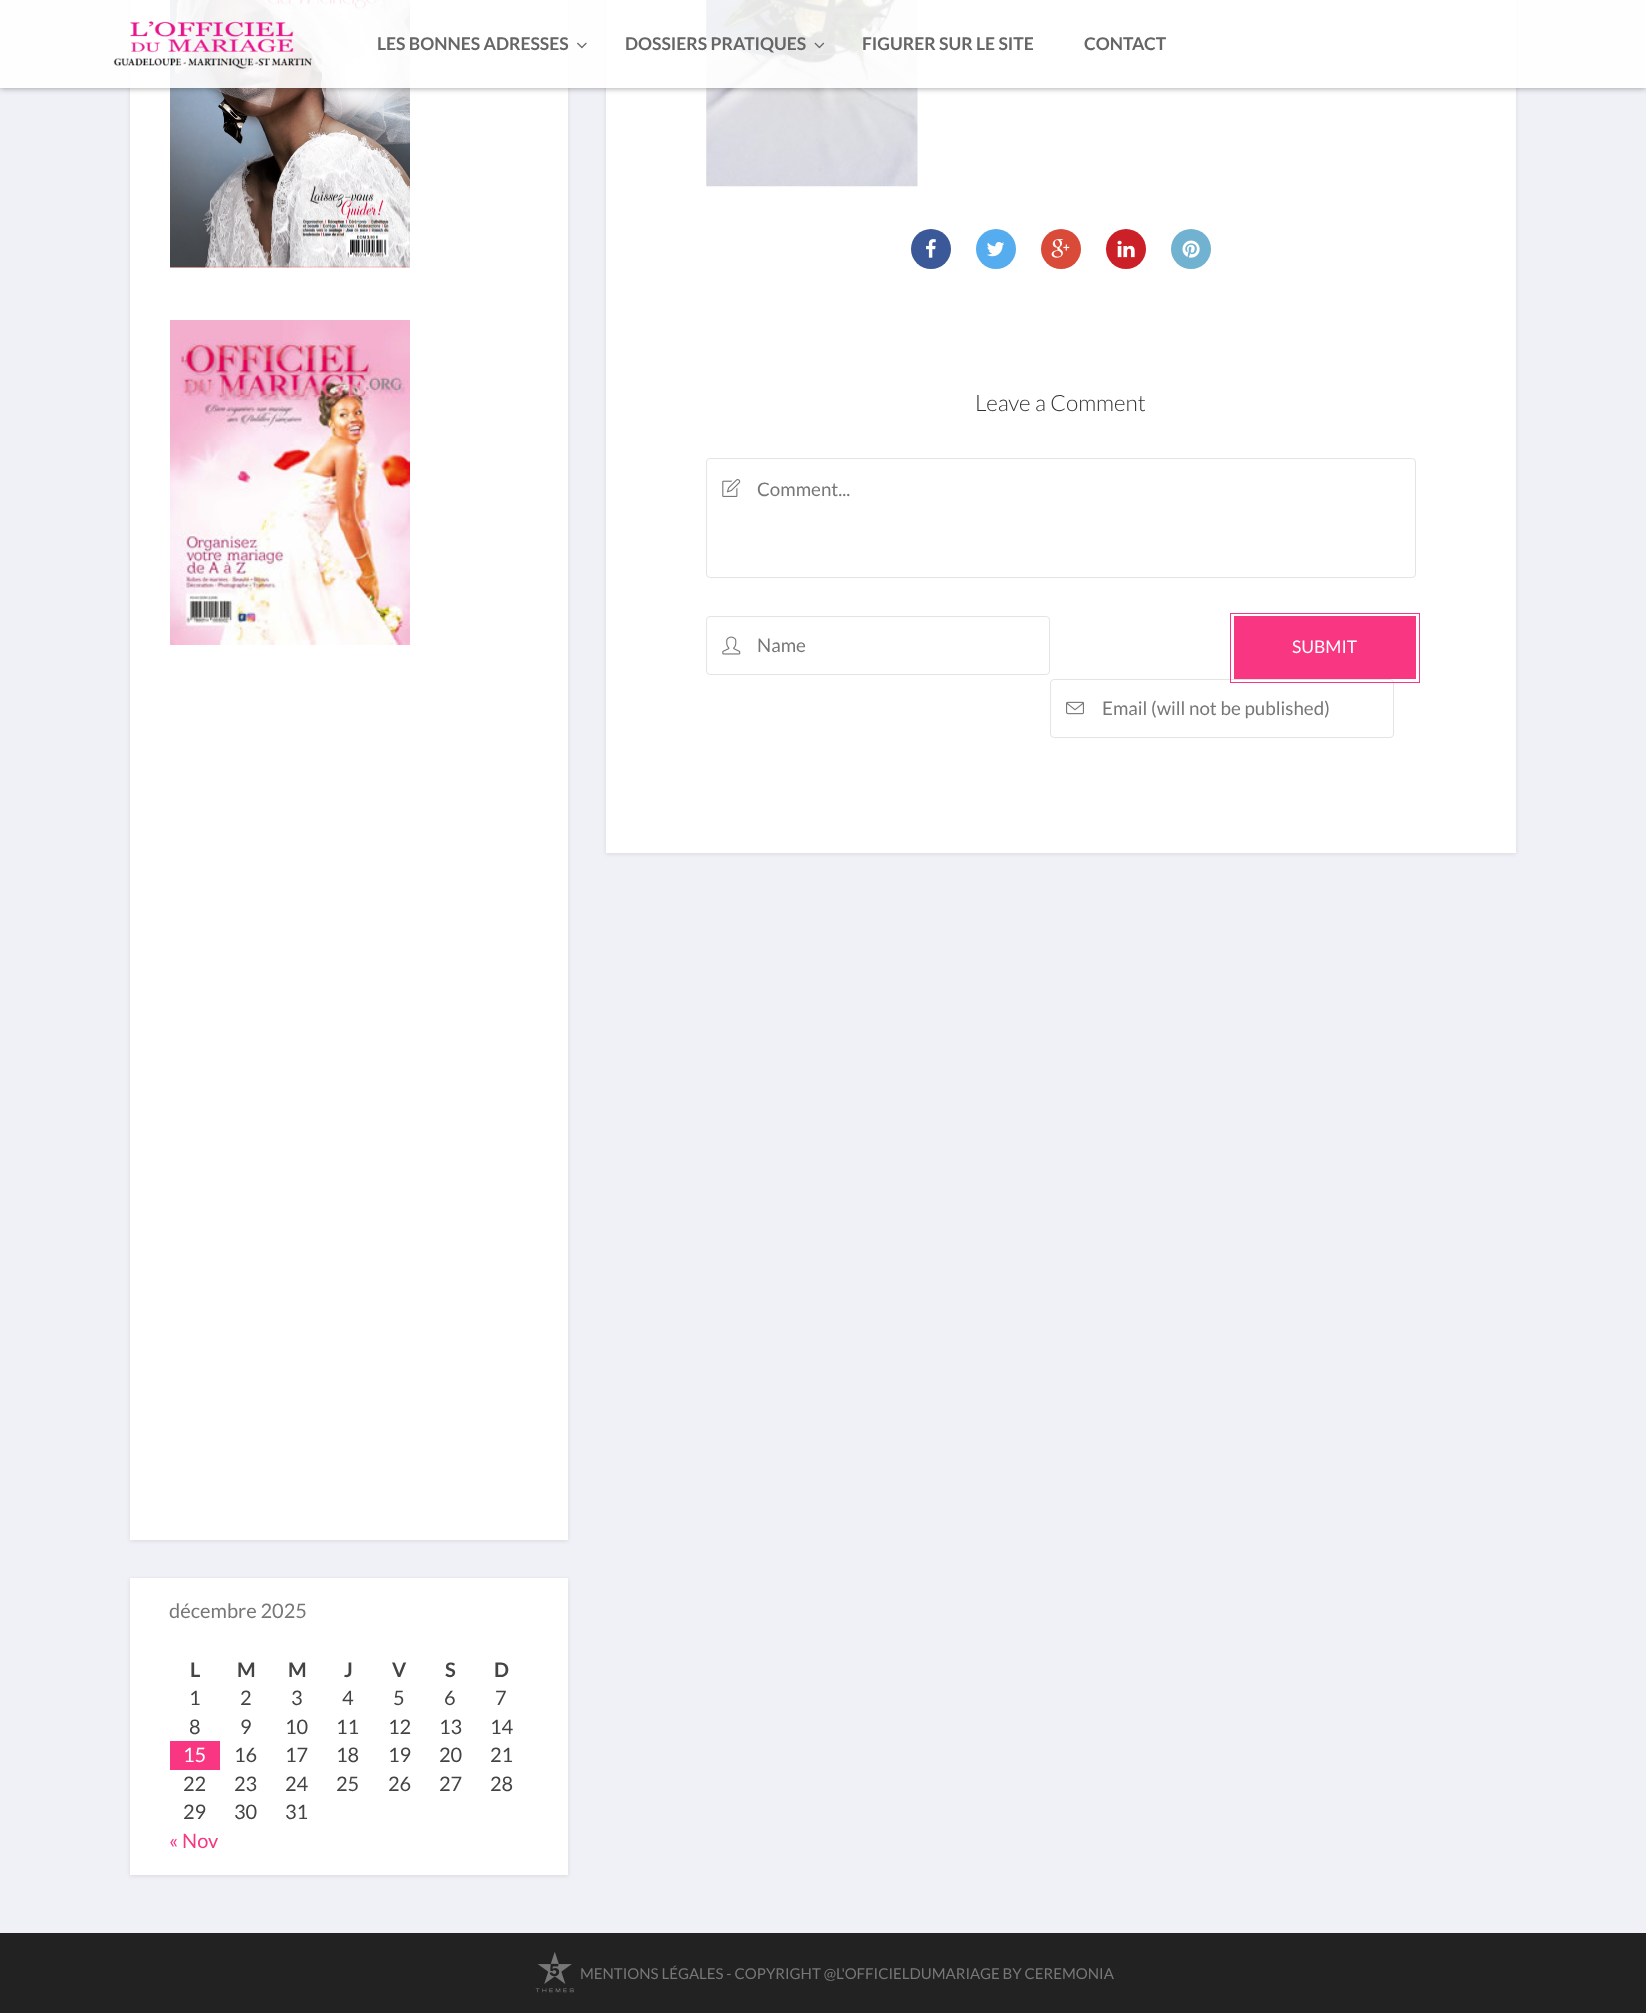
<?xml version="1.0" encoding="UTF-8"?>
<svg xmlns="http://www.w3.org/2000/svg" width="1646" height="2013">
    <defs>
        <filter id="blur1" x="-50%" y="-200%" width="200%" height="500%"><feGaussianBlur stdDeviation="2"/></filter>
        <clipPath id="clip1"><path d="M 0 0 H 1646 V 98 H 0 Z M 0 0 H 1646 V 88 H 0 Z" clip-rule="evenodd"/></clipPath>
        <filter id="blur2" x="-50%" y="-200%" width="200%" height="500%"><feGaussianBlur stdDeviation="3"/></filter>
    </defs>
    <rect width="100%" height="100%" fill="#F0F0F7"/>
    <rect x="606" y="-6" width="910" height="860" fill="#000000" fill-opacity="0.1" filter="url(#blur1)"/>
    <rect x="606" y="0" width="910" height="853" fill="#FFFFFF"/>
    <image x="706" y="0" width="212" height="187" href="img_04.png"/>
    <rect x="130" y="-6" width="438" height="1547" fill="#000000" fill-opacity="0.1" filter="url(#blur1)"/>
    <rect x="130" y="0" width="438" height="1540" fill="#FFFFFF"/>
    <image x="170" y="0" width="240" height="268" href="img_13.png"/>
    <g clip-path="url(#clip1)">
        <rect x="0" y="0" width="1646" height="88" fill="#000000" fill-opacity="0.4" filter="url(#blur2)"/>
    </g>
    <rect x="0" y="0" width="1646" height="88" fill="#FFFFFF" fill-opacity="0.9"/>
    <image x="113" y="21" width="199" height="48" href="img_01.png"/>
    <text x="377" y="50" font-family="Lato" font-size="17.5" font-weight="700" fill="#666666">LES BONNES ADRESSES</text>
    <image x="577" y="42" width="10" height="7" href="img_02.png"/>
    <text x="625" y="50" font-family="Lato" font-size="17.5" font-weight="700" fill="#666666">DOSSIERS PRATIQUES</text>
    <image x="814" y="42" width="11" height="7" href="img_03.png"/>
    <text x="862" y="50" font-family="Lato" font-size="17.5" font-weight="700" fill="#666666">FIGURER SUR LE SITE</text>
    <text x="1084" y="50" font-family="Lato" font-size="17.5" font-weight="700" fill="#666666">CONTACT</text>
    <circle cx="931" cy="249" r="20" fill="#3B5998"/>
    <image x="926" y="239" width="10" height="19" href="img_05.png"/>
    <circle cx="996" cy="249" r="20" fill="#55ACEE"/>
    <image x="987" y="242" width="18" height="15" href="img_06.png"/>
    <circle cx="1061" cy="249" r="20" fill="#D94A39"/>
    <image x="1051" y="239" width="19" height="19" href="img_07.png"/>
    <circle cx="1126" cy="249" r="20" fill="#CB2027"/>
    <image x="1117" y="240" width="18" height="18" href="img_08.png"/>
    <circle cx="1191" cy="249" r="20" fill="#71B2D0"/>
    <image x="1182" y="240" width="18" height="18" href="img_09.png"/>
    <text x="975" y="411" font-family="Lato" font-size="22.5" font-weight="300" fill="#333333">Leave a Comment</text>
    <rect x="706.5" y="458.5" width="709" height="119" rx="3.5" fill="none" stroke="#E4E4E3"/>
    <image x="722" y="479" width="19" height="18" href="img_10.png"/>
    <text x="757" y="496" font-family="Lato" font-size="18.75" fill="#777777">Comment...</text>
    <rect x="706.5" y="616.5" width="343" height="58" rx="3.5" fill="none" stroke="#E4E4E3"/>
    <image x="722" y="636" width="19" height="19" href="img_11.png"/>
    <text x="757" y="652" font-family="Lato" font-size="18.75" fill="#777777">Name</text>
    <rect x="1234" y="616" width="182" height="63" fill="#F83681"/>
    <rect x="1050.5" y="679.5" width="343" height="58" rx="3.5" fill="none" stroke="#E4E4E3"/>
    <rect x="1230.5" y="613.5" width="189" height="69" fill="none" stroke="#F83681"/>
    <text x="1292" y="653" font-family="Lato" font-size="17.5" fill="#FFFFFF">SUBMIT</text>
    <image x="1066" y="701" width="18" height="14" href="img_12.png"/>
    <text x="1102" y="715" font-family="Lato" font-size="18.75" fill="#777777">Email (will not be published)</text>
    <image x="170" y="320" width="240" height="325" href="img_14.png"/>
    <rect x="130" y="1579" width="438" height="297" fill="#000000" fill-opacity="0.1" filter="url(#blur1)"/>
    <rect x="130" y="1578" width="438" height="297" fill="#FFFFFF"/>
    <text x="169" y="1618" font-family="Lato" font-size="20" fill="#777777">décembre 2025</text>
    <text x="190" y="1677" font-family="Lato" font-size="20" font-weight="700" fill="#444444">L</text>
    <text x="237" y="1677" font-family="Lato" font-size="20" font-weight="700" fill="#444444">M</text>
    <text x="288" y="1677" font-family="Lato" font-size="20" font-weight="700" fill="#444444">M</text>
    <text x="344" y="1677" font-family="Lato" font-size="20" font-weight="700" fill="#444444">J</text>
    <text x="392" y="1677" font-family="Lato" font-size="20" font-weight="700" fill="#444444">V</text>
    <text x="445" y="1677" font-family="Lato" font-size="20" font-weight="700" fill="#444444">S</text>
    <text x="494" y="1677" font-family="Lato" font-size="20" font-weight="700" fill="#444444">D</text>
    <text x="189" y="1705" font-family="Lato" font-size="20" fill="#444444">1</text>
    <text x="240" y="1705" font-family="Lato" font-size="20" fill="#444444">2</text>
    <text x="291" y="1705" font-family="Lato" font-size="20" fill="#444444">3</text>
    <text x="342" y="1705" font-family="Lato" font-size="20" fill="#444444">4</text>
    <text x="393" y="1705" font-family="Lato" font-size="20" fill="#444444">5</text>
    <text x="444" y="1705" font-family="Lato" font-size="20" fill="#444444">6</text>
    <text x="495" y="1705" font-family="Lato" font-size="20" fill="#444444">7</text>
    <text x="189" y="1734" font-family="Lato" font-size="20" fill="#444444">8</text>
    <text x="240" y="1734" font-family="Lato" font-size="20" fill="#444444">9</text>
    <text x="285" y="1734" font-family="Lato" font-size="20" fill="#444444">10</text>
    <text x="336" y="1734" font-family="Lato" font-size="20" fill="#444444">11</text>
    <text x="388" y="1734" font-family="Lato" font-size="20" fill="#444444">12</text>
    <text x="439" y="1734" font-family="Lato" font-size="20" fill="#444444">13</text>
    <text x="490" y="1734" font-family="Lato" font-size="20" fill="#444444">14</text>
    <rect x="170" y="1741" width="50" height="29" fill="#F83681"/>
    <text x="183" y="1762" font-family="Lato" font-size="20" fill="#FFFFFF">15</text>
    <text x="234" y="1762" font-family="Lato" font-size="20" fill="#444444">16</text>
    <text x="285" y="1762" font-family="Lato" font-size="20" fill="#444444">17</text>
    <text x="336" y="1762" font-family="Lato" font-size="20" fill="#444444">18</text>
    <text x="388" y="1762" font-family="Lato" font-size="20" fill="#444444">19</text>
    <text x="439" y="1762" font-family="Lato" font-size="20" fill="#444444">20</text>
    <text x="490" y="1762" font-family="Lato" font-size="20" fill="#444444">21</text>
    <text x="183" y="1791" font-family="Lato" font-size="20" fill="#444444">22</text>
    <text x="234" y="1791" font-family="Lato" font-size="20" fill="#444444">23</text>
    <text x="285" y="1791" font-family="Lato" font-size="20" fill="#444444">24</text>
    <text x="336" y="1791" font-family="Lato" font-size="20" fill="#444444">25</text>
    <text x="388" y="1791" font-family="Lato" font-size="20" fill="#444444">26</text>
    <text x="439" y="1791" font-family="Lato" font-size="20" fill="#444444">27</text>
    <text x="490" y="1791" font-family="Lato" font-size="20" fill="#444444">28</text>
    <text x="183" y="1819" font-family="Lato" font-size="20" fill="#444444">29</text>
    <text x="234" y="1819" font-family="Lato" font-size="20" fill="#444444">30</text>
    <text x="285" y="1819" font-family="Lato" font-size="20" fill="#444444">31</text>
    <text x="169" y="1848" font-family="Lato" font-size="20" fill="#F83681">« Nov</text>
    <rect x="0" y="1933" width="1646" height="80" fill="#222222"/>
    <image x="535" y="1952" width="39" height="41" href="img_15.png"/>
    <text x="580" y="1979" font-family="Lato" font-size="15" fill="#777777">MENTIONS LÉGALES - COPYRIGHT @L'OFFICIELDUMARIAGE BY CEREMONIA</text>
</svg>
